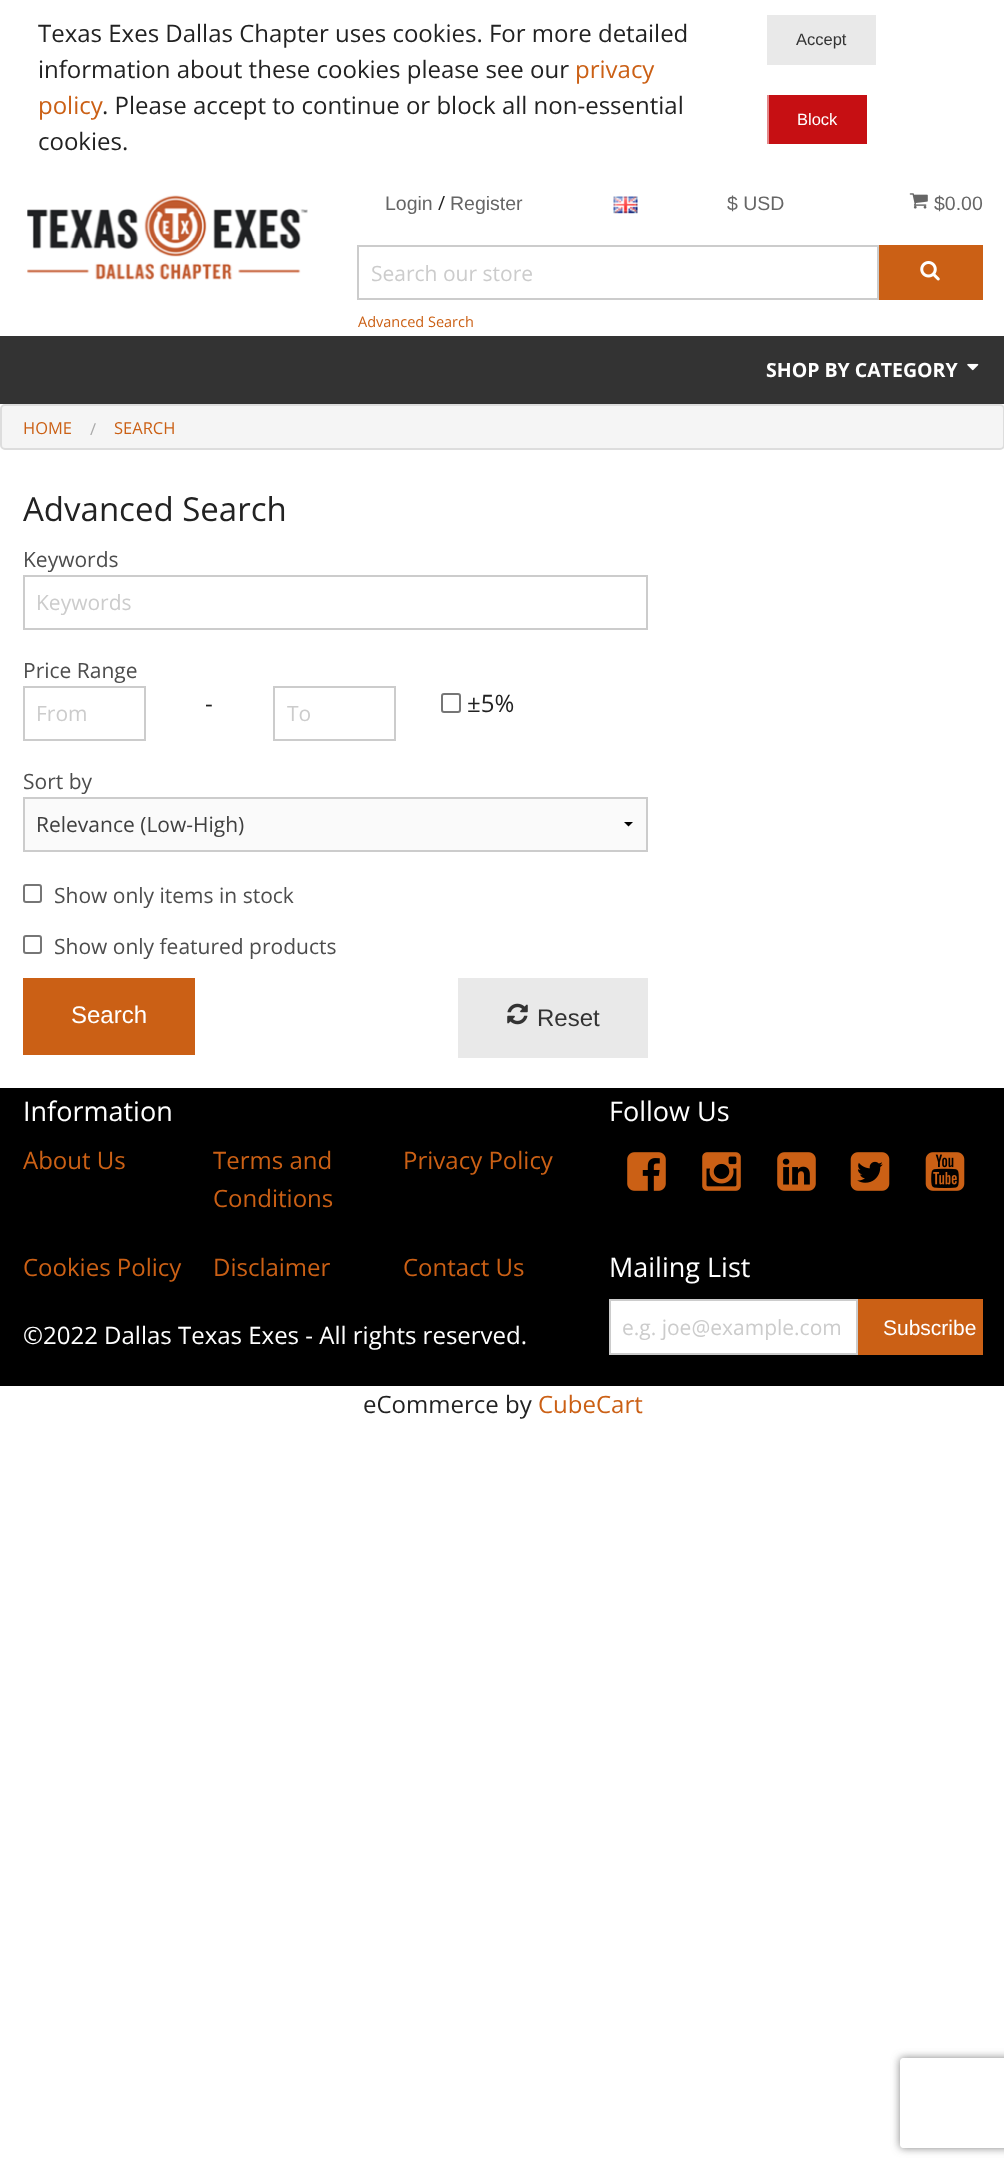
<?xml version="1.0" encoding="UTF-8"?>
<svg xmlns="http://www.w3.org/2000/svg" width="1004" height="2169">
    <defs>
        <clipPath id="clip1"><path d="M 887 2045 H 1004 V 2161 H 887 Z M 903 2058 H 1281 C 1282.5 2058 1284 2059.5 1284 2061 V 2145 C 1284 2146.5 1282.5 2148 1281 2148 H 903 C 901.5 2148 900 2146.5 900 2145 V 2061 C 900 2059.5 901.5 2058 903 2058 Z" clip-rule="evenodd"/></clipPath>
        <filter id="blur1" x="-50%" y="-200%" width="200%" height="500%"><feGaussianBlur stdDeviation="4"/></filter>
    </defs>
    <rect width="100%" height="100%" fill="#FFFFFF"/>
    <text font-family="Open Sans" font-size="24" fill="#222222">
        <tspan x="38" y="42">Texas Exes Dallas Chapter uses cookies. For more detailed</tspan>
        <tspan x="38" y="78">information about these cookies please see our</tspan>
    </text>
    <text x="575" y="78" font-family="Open Sans" font-size="24" fill="#CB6015">privacy</text>
    <text x="38" y="114" font-family="Open Sans" font-size="24" fill="#CB6015">policy</text>
    <text x="102" y="114" font-family="Open Sans" font-size="24" fill="#222222">. Please accept to continue or block all non-essential</text>
    <text x="38" y="150" font-family="Open Sans" font-size="24" fill="#222222">cookies.</text>
    <rect x="767" y="15" width="109" height="50" fill="#E9E9E9"/>
    <text x="796" y="45" font-family="Liberation Sans" font-size="16.5" fill="#333333">Accept</text>
    <rect x="769" y="95" width="98" height="49" fill="#C60F13"/>
    <rect x="767" y="95" width="2" height="49" fill="#E38789"/>
    <text x="797" y="125" font-family="Liberation Sans" font-size="16.5" fill="#FFFFFF">Block</text>
    <image x="27" y="195" width="281" height="85" href="img_01.png"/>
    <text x="385" y="210" font-family="Liberation Sans" font-size="19.5" fill="#666666">Login</text>
    <text x="438" y="210" font-family="Open Sans" font-size="19.5" fill="#222222">/</text>
    <text x="450" y="210" font-family="Liberation Sans" font-size="19.5" fill="#666666">Register</text>
    <image x="613" y="196" width="25" height="18" href="img_02.png"/>
    <text x="727" y="210" font-family="Liberation Sans" font-size="19.5" fill="#666666">$ USD</text>
    <image x="909" y="193" width="19" height="16" href="img_03.png"/>
    <text x="934" y="210" font-family="Liberation Sans" font-size="19.5" fill="#666666">$0.00</text>
    <rect x="358" y="246" width="520" height="53" fill="none" stroke="#CCCCCC" stroke-width="2"/>
    <text x="371" y="281" font-family="Open Sans" font-size="21" fill="#CCCCCC">Search our store</text>
    <text x="358" y="327" font-family="Open Sans" font-size="14.5" fill="#CB6015">Advanced Search</text>
    <rect x="879" y="245" width="104" height="55" fill="#CB6015"/>
    <image x="920" y="261" width="20" height="20" href="img_04.png"/>
    <rect x="0" y="336" width="1004" height="68" fill="#333333"/>
    <text x="766" y="377" font-family="Open Sans" font-size="19.5" font-weight="700" fill="#FFFFFF">SHOP BY CATEGORY</text>
    <image x="967" y="363" width="12" height="8" href="img_05.png"/>
    <rect x="1" y="405" width="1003" height="44" rx="4" fill="#F5F5F5" stroke="#DDDDDD" stroke-width="2"/>
    <text x="23" y="434" font-family="Open Sans" font-size="16.5" fill="#CB6015">HOME</text>
    <text x="90" y="435" font-family="Open Sans" font-size="16.5" fill="#AAAAAA">/</text>
    <text x="114" y="434" font-family="Open Sans" font-size="16.5" fill="#CB6015">SEARCH</text>
    <text x="23" y="521" font-family="Open Sans" font-size="33" fill="#222222">Advanced Search</text>
    <text x="23" y="567" font-family="Open Sans" font-size="21" fill="#4D4D4D">Keywords</text>
    <rect x="24" y="576" width="623" height="53" fill="none" stroke="#CCCCCC" stroke-width="2"/>
    <text x="36" y="610" font-family="Open Sans" font-size="21" fill="#CCCCCC">Keywords</text>
    <text x="23" y="678" font-family="Open Sans" font-size="21" fill="#4D4D4D">Price Range</text>
    <text x="205" y="712" font-family="Open Sans" font-size="24" fill="#222222">-</text>
    <rect x="442" y="694" width="18" height="18" rx="2" fill="none" stroke="#767676" stroke-width="2"/>
    <text x="467" y="712" font-family="Open Sans" font-size="24" fill="#222222">±5%</text>
    <rect x="24" y="687" width="121" height="53" fill="none" stroke="#CCCCCC" stroke-width="2"/>
    <text x="36" y="721" font-family="Open Sans" font-size="21" fill="#CCCCCC">From</text>
    <rect x="274" y="687" width="121" height="53" fill="none" stroke="#CCCCCC" stroke-width="2"/>
    <text x="287" y="721" font-family="Open Sans" font-size="21" fill="#CCCCCC">To</text>
    <text x="23" y="789" font-family="Open Sans" font-size="21" fill="#4D4D4D">Sort by</text>
    <rect x="25" y="799" width="621" height="51" fill="#FAFAFA"/>
    <path d="M 633 822 L 628.5 826.5 L 624 822 Z" fill="#000000"/>
    <rect x="24" y="798" width="623" height="53" fill="none" stroke="#CCCCCC" stroke-width="2"/>
    <text x="36" y="832" font-family="Open Sans" font-size="21" fill="#3F3F3F">Relevance (Low-High)</text>
    <rect x="24" y="885" width="17" height="17" rx="2" fill="none" stroke="#767676" stroke-width="2"/>
    <text x="54" y="903" font-family="Open Sans" font-size="21" fill="#4D4D4D">Show only items in stock</text>
    <rect x="24" y="936" width="17" height="17" rx="2" fill="none" stroke="#767676" stroke-width="2"/>
    <text x="54" y="954" font-family="Open Sans" font-size="21" fill="#4D4D4D">Show only featured products</text>
    <rect x="23" y="978" width="172" height="77" fill="#CB6015"/>
    <text x="71" y="1023" font-family="Liberation Sans" font-size="24" fill="#FFFFFF">Search</text>
    <rect x="458" y="978" width="190" height="80" fill="#E9E9E9"/>
    <image x="507" y="1003" width="21" height="22" href="img_06.png"/>
    <text x="537" y="1026" font-family="Liberation Sans" font-size="24" fill="#333333">Reset</text>
    <rect x="0" y="1088" width="1004" height="298" fill="#000000"/>
    <text x="23" y="1121" font-family="Open Sans" font-size="27" fill="#FFFFFF">Information</text>
    <text x="23" y="1169" font-family="Open Sans" font-size="24" fill="#CB6015">About Us</text>
    <text font-family="Open Sans" font-size="24" fill="#CB6015">
        <tspan x="213" y="1169">Terms and</tspan>
        <tspan x="213" y="1207">Conditions</tspan>
    </text>
    <text x="403" y="1169" font-family="Open Sans" font-size="24" fill="#CB6015">Privacy Policy</text>
    <text x="23" y="1276" font-family="Open Sans" font-size="24" fill="#CB6015">Cookies Policy</text>
    <text x="213" y="1276" font-family="Open Sans" font-size="24" fill="#CB6015">Disclaimer</text>
    <text x="403" y="1276" font-family="Open Sans" font-size="24" fill="#CB6015">Contact Us</text>
    <text x="23" y="1344" font-family="Open Sans" font-size="24" fill="#FFFFFF">©2022 Dallas Texas Exes - All rights reserved.</text>
    <text x="609" y="1121" font-family="Open Sans" font-size="27" fill="#FFFFFF">Follow Us</text>
    <image x="627" y="1152" width="39" height="39" href="img_07.png"/>
    <image x="702" y="1152" width="39" height="39" href="img_08.png"/>
    <image x="777" y="1152" width="39" height="39" href="img_09.png"/>
    <image x="850" y="1152" width="40" height="39" href="img_10.png"/>
    <image x="925" y="1152" width="40" height="39" href="img_11.png"/>
    <text x="609" y="1277" font-family="Open Sans" font-size="27" fill="#FFFFFF">Mailing List</text>
    <rect x="610" y="1300" width="247" height="54" fill="#FFFFFF" stroke="#CCCCCC" stroke-width="2"/>
    <text x="622" y="1335" font-family="Open Sans" font-size="21" fill="#CCCCCC">e.g. joe@example.com</text>
    <rect x="858" y="1299" width="125" height="56" fill="#CB6015"/>
    <text x="883" y="1335" font-family="Liberation Sans" font-size="21" fill="#FFFFFF">Subscribe</text>
    <g clip-path="url(#clip1)">
        <rect x="900" y="2058" width="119" height="90" rx="3" fill="#808080" filter="url(#blur1)"/>
    </g>
    <text x="363" y="1413" font-family="Open Sans" font-size="24" fill="#222222">eCommerce by</text>
    <text x="538" y="1413" font-family="Open Sans" font-size="24" fill="#CB6015">CubeCart</text>
</svg>
